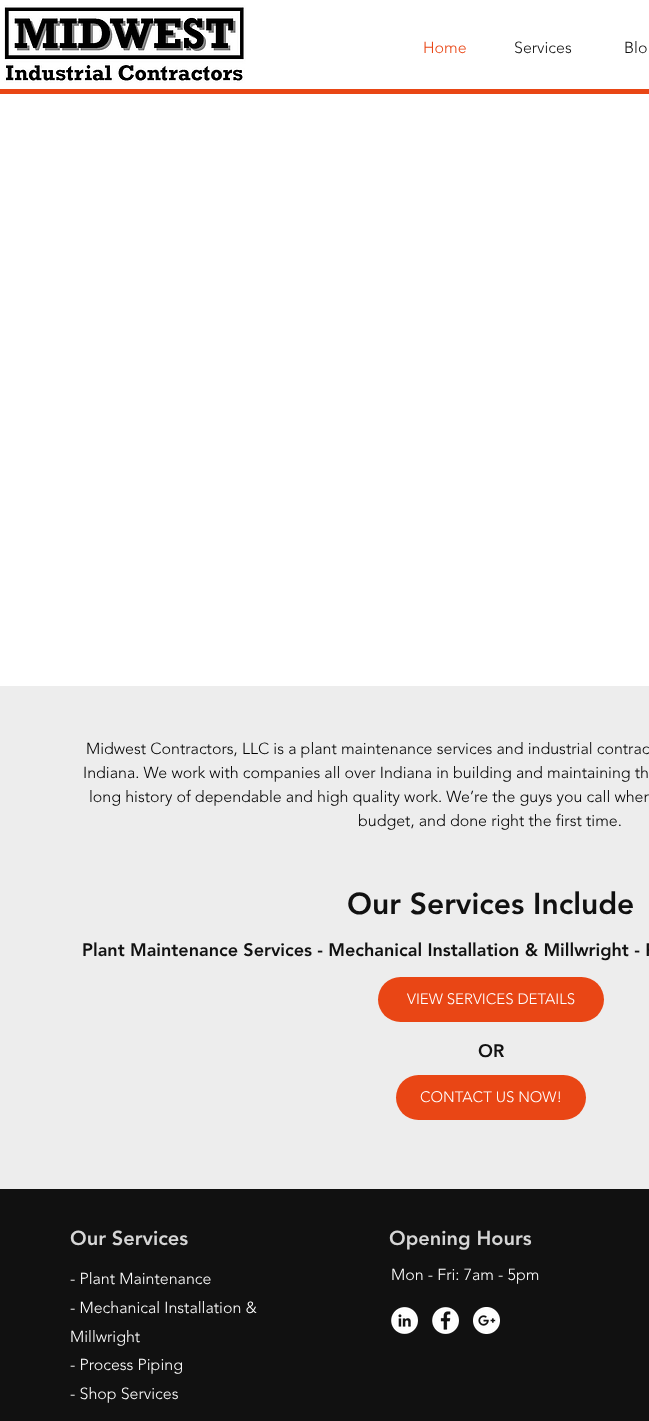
<?xml version="1.0" encoding="UTF-8"?>
<svg xmlns="http://www.w3.org/2000/svg" width="649" height="1421">
    <rect width="100%" height="100%" fill="#FFFFFF"/>
    <image x="4" y="5" width="242" height="78" href="img_01.png"/>
    <text x="423" y="53" font-family="'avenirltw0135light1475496'" font-size="16" font-weight="300" fill="#E94615">Home</text>
    <text x="514" y="53" font-family="'avenirltw0135light1475496'" font-size="16" font-weight="300" fill="#111111">Services</text>
    <text x="624" y="53" font-family="'avenirltw0135light1475496'" font-size="16" font-weight="300" fill="#111111">Blo</text>
    <rect x="0" y="89" width="649" height="5" fill="#E94615"/>
    <rect x="0" y="686" width="649" height="503" fill="#EDEDED"/>
    <text x="86" y="754" font-family="'avenirltw0135light1475496'" font-size="16" font-weight="300" fill="#000000">Midwest Contractors, LLC is a plant maintenance services and industrial contrac</text>
    <text x="83" y="778" font-family="'avenirltw0135light1475496'" font-size="16" font-weight="300" fill="#000000">Indiana. We work with companies all over Indiana in building and maintaining th</text>
    <text x="89" y="802" font-family="'avenirltw0135light1475496'" font-size="16" font-weight="300" fill="#000000">long history of dependable and high quality work. We’re the guys you call when</text>
    <text x="358" y="826" font-family="'avenirltw0135light1475496'" font-size="16" font-weight="300" fill="#000000">budget, and done right the first time.</text>
    <text x="347" y="914" font-family="'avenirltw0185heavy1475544'" font-size="30" font-weight="900" fill="#111111">Our Services Include</text>
    <text x="82" y="956" font-family="'avenirltw0185heavy1475544'" font-size="18" font-weight="900" fill="#111111">Plant Maintenance Services - Mechanical Installation &amp; Millwright - P</text>
    <rect x="378" y="977" width="226" height="45" rx="22.5" fill="#E94615"/>
    <text x="407" y="1004" font-family="'avenirltw0135light1475496'" font-size="15" font-weight="300" fill="#FFFFFF">VIEW SERVICES DETAILS</text>
    <text x="478" y="1057" font-family="'avenirltw0185heavy1475544'" font-size="18" font-weight="900" fill="#111111">OR</text>
    <rect x="396" y="1075" width="190" height="45" rx="22.5" fill="#E94615"/>
    <text x="420" y="1102" font-family="'avenirltw0135light1475496'" font-size="15" font-weight="300" fill="#FFFFFF">CONTACT US NOW!</text>
    <rect x="0" y="1189" width="649" height="232" fill="#111111"/>
    <text x="70" y="1245" font-family="'avenirltw0185heavy1475544'" font-size="20" font-weight="900" fill="#D6D6D6">Our Services</text>
    <text x="389" y="1245" font-family="'avenirltw0185heavy1475544'" font-size="20" font-weight="900" fill="#D6D6D6">Opening Hours</text>
    <text font-family="'avenirltw0135light1475496'" font-size="16" font-weight="300" fill="#FFFFFF">
        <tspan x="70" y="1284">- Plant Maintenance</tspan>
        <tspan x="70" y="1313">- Mechanical Installation &amp;</tspan>
        <tspan x="70" y="1342">Millwright</tspan>
        <tspan x="70" y="1370">- Process Piping</tspan>
        <tspan x="70" y="1399">- Shop Services</tspan>
    </text>
    <text x="391" y="1280" font-family="'avenirltw0135light1475496'" font-size="16" font-weight="300" fill="#FFFFFF">Mon - Fri: 7am - 5pm</text>
    <image x="391" y="1307" width="27" height="27" href="img_02.png"/>
    <image x="432" y="1307" width="27" height="27" href="img_03.png"/>
    <image x="473" y="1307" width="27" height="27" href="img_04.png"/>
</svg>
